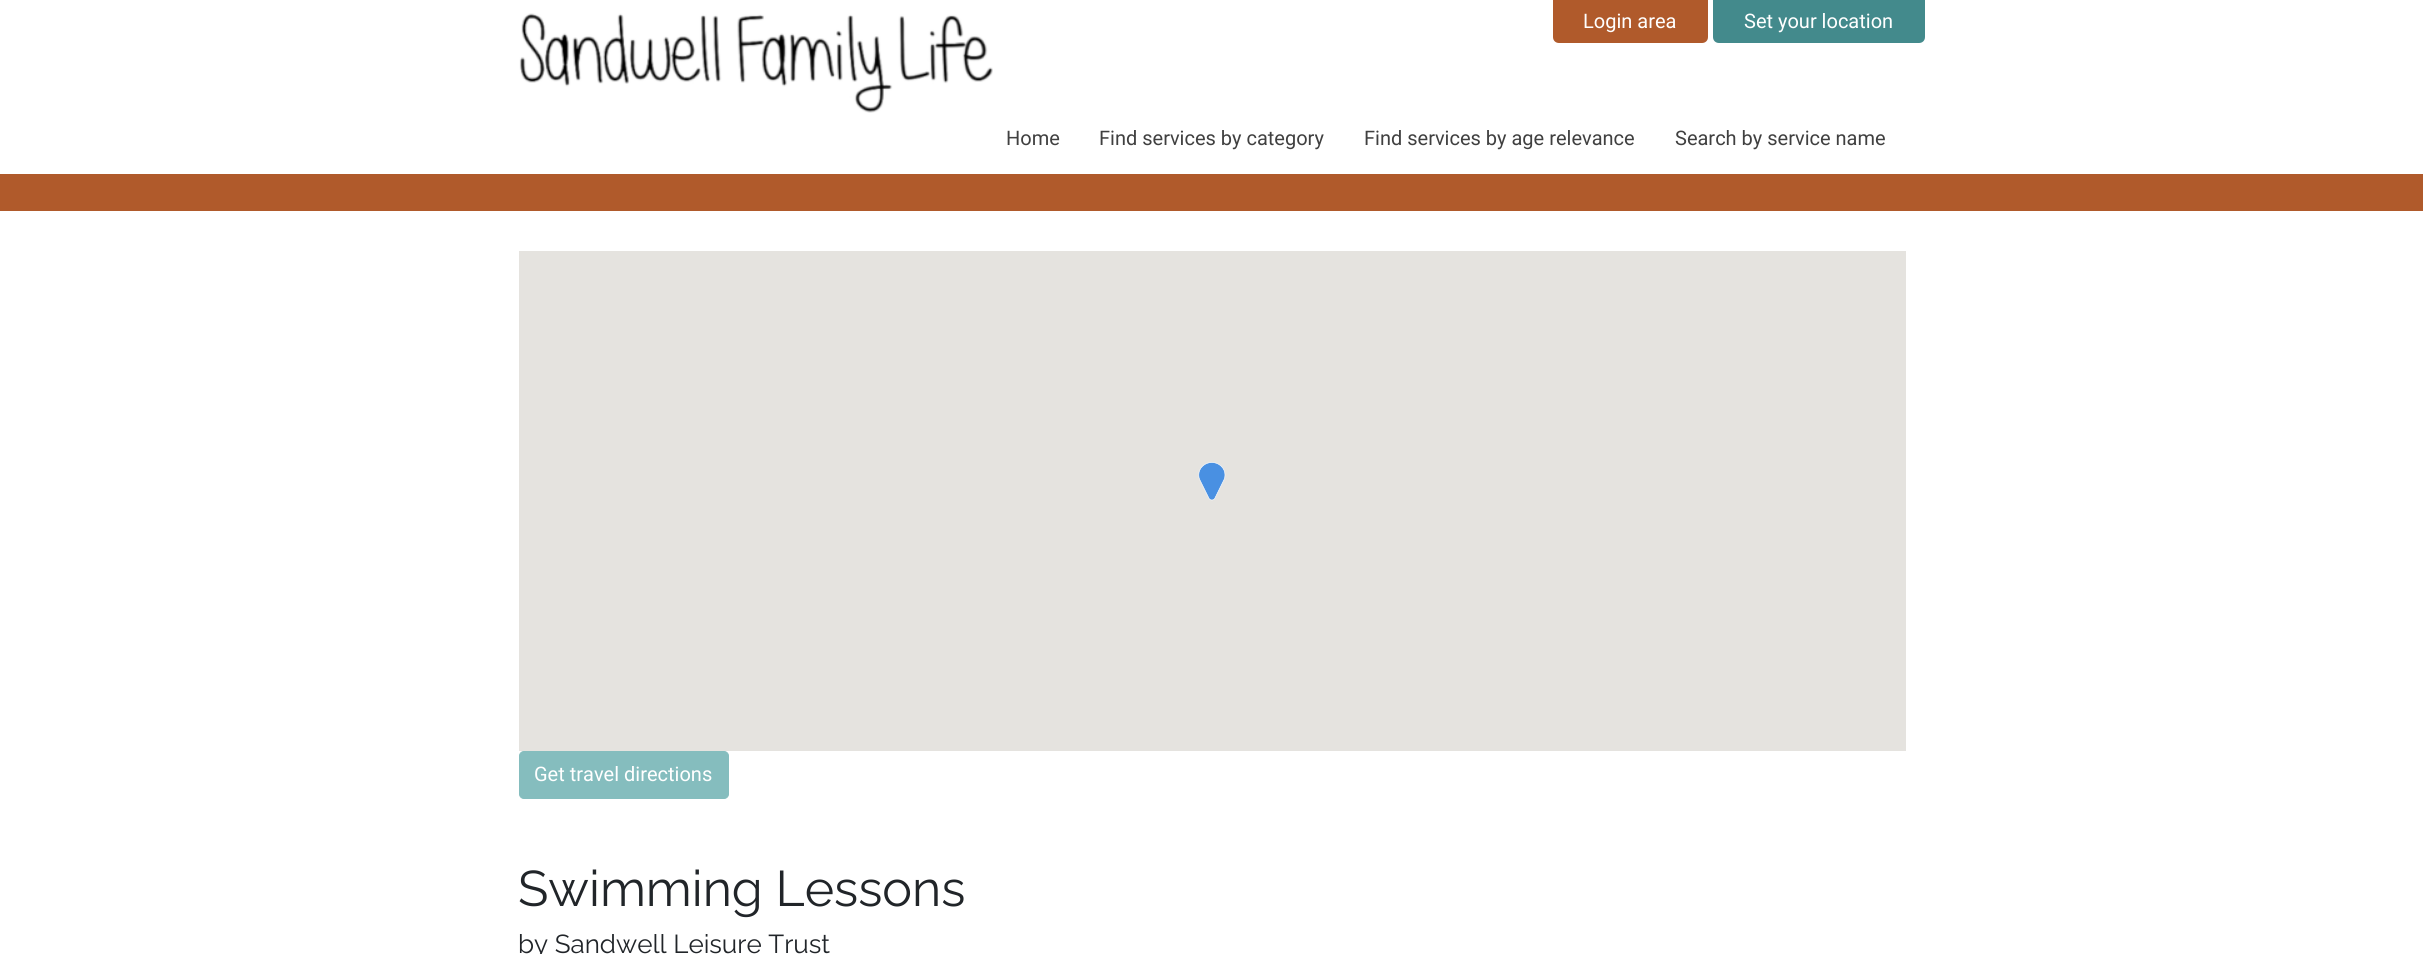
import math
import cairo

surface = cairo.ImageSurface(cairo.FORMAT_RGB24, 2423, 954)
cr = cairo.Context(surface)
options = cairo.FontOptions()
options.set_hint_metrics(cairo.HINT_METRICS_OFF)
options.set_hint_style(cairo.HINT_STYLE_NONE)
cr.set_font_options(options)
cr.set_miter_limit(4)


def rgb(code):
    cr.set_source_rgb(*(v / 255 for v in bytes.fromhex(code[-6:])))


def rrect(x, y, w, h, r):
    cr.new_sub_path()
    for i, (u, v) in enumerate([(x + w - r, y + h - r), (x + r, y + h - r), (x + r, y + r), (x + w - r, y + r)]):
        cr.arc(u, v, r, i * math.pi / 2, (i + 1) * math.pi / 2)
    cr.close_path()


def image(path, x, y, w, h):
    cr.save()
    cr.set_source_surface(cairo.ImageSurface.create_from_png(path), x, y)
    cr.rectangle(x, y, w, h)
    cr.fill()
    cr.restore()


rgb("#ffffff")
cr.paint()
rgb("#b05a2b")
cr.rectangle(0, 174, 2423, 37)
cr.fill()
image("img/1.png", 519, 13, 474, 100)
cr.new_path()
cr.move_to(1553, -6)
cr.line_to(1708, -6)
cr.line_to(1708, 37)
cr.curve_to(1708, 40.5, 1705.5, 43, 1702, 43)
cr.line_to(1559, 43)
cr.curve_to(1555.5, 43, 1553, 40.5, 1553, 37)
cr.close_path()
cr.fill()
rgb("#438a8c")
cr.new_path()
cr.move_to(1713, -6)
cr.line_to(1925, -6)
cr.line_to(1925, 37)
cr.curve_to(1925, 40.5, 1922.5, 43, 1919, 43)
cr.line_to(1719, 43)
cr.curve_to(1715.5, 43, 1713, 40.5, 1713, 37)
cr.close_path()
cr.fill()
rgb("#e5e3df")
cr.rectangle(519, 251, 1387, 500)
cr.fill()
image("img/2.png", 1198, 462, 28, 39)
rgb("#85bdbe")
rrect(519.5, 751.5, 209, 47, 4.5)
cr.fill_preserve()
cr.set_line_width(1)
cr.stroke()
cr.select_font_face("Roboto")
cr.set_font_size(20)
rgb("#ffffff")
cr.move_to(1583, 28)
cr.show_text("Login area")
cr.move_to(1744, 28)
cr.show_text("Set your location")
rgb("#404040")
for x, y, s in [
    (1006, 145, "Home"),
    (1099, 145, "Find services by category"),
    (1364, 145, "Find services by age relevance"),
    (1675, 145, "Search by service name"),
]:
    cr.move_to(x, y)
    cr.show_text(s)
rgb("#ffffff")
cr.move_to(534, 781)
cr.show_text("Get travel directions")
cr.select_font_face("Raleway")
cr.set_font_size(50)
rgb("#212529")
cr.move_to(518, 906)
cr.show_text("Swimming Lessons")
cr.set_font_size(26)
cr.move_to(518, 953)
cr.show_text("by Sandwell Leisure Trust")
surface.write_to_png("page.png")
